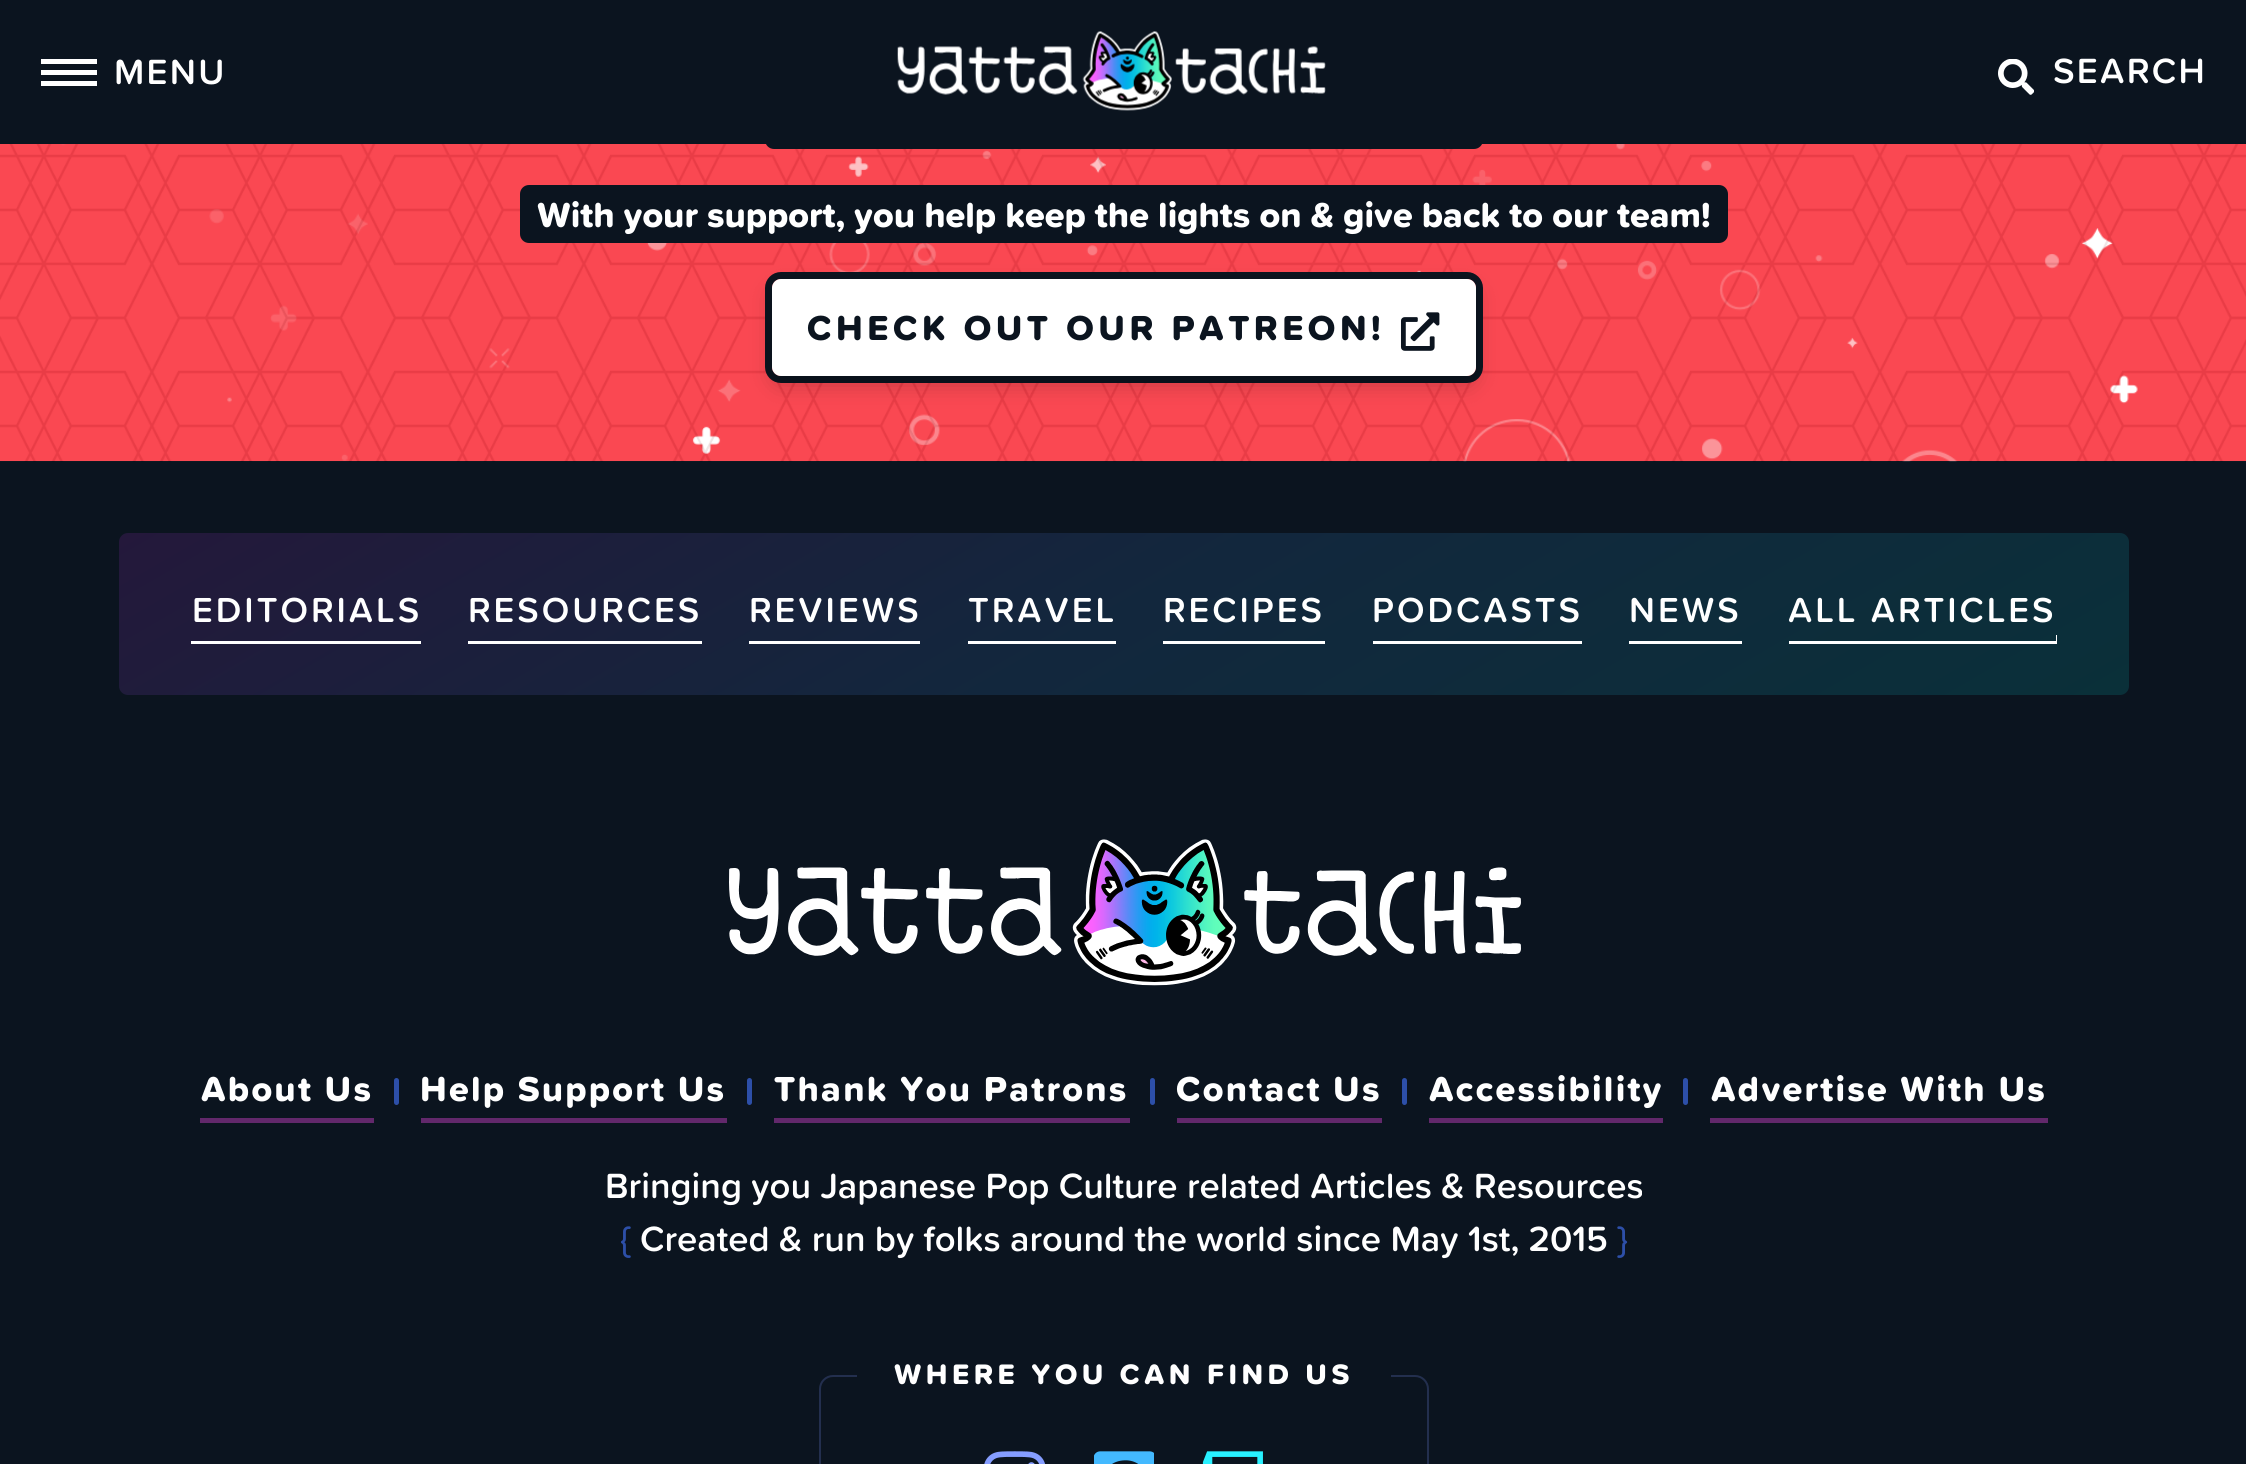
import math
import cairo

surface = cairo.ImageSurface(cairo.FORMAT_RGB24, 2246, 1464)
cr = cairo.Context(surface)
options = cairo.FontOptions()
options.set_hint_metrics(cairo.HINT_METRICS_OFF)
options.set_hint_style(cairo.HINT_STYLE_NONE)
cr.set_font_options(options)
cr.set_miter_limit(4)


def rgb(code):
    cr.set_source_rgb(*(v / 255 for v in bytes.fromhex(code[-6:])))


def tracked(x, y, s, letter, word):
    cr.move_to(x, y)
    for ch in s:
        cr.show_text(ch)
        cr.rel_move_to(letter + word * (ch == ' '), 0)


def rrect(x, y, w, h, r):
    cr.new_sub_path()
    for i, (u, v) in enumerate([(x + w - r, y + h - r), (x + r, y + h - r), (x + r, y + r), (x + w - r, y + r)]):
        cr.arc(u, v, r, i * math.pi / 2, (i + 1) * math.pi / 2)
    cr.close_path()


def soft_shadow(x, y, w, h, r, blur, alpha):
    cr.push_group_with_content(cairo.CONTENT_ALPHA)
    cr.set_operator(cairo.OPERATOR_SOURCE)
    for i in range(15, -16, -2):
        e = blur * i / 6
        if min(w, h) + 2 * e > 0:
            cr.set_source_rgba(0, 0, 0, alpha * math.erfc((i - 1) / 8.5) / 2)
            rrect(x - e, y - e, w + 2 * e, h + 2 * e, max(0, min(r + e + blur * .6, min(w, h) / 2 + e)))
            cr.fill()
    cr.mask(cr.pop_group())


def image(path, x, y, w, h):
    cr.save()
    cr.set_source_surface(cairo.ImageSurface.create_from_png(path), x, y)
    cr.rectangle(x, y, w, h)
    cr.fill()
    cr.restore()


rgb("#0b141f")
cr.paint()
for x, y, w, h, color in [
    (41, 59, 56, 5, "#ffffff"),
    (41, 70, 56, 5, "#ffffff"),
    (41, 81, 56, 5, "#ffffff"),
    (0, 144, 2246, 317, "#ff424d"),
]:
    rgb(color)
    cr.rectangle(x, y, w, h)
    cr.fill()
image("img/3.png", 0, 144, 2246, 318)
rgb("#0b141f")
rrect(765, 43, 718, 106, 9)
cr.fill()
image("img/1.png", 897, 31, 429, 80)
image("img/2.png", 1998, 59, 36, 36)
rrect(520, 185, 1208, 58, 9)
cr.fill()
rrect(768.5, 275.5, 711, 104, 12.5)
cr.set_line_width(7)
cr.stroke()
rgb("#000000")
soft_shadow(772, 288, 704, 97, 9, 11, 0.2)
rgb("#ffffff")
rrect(772, 279, 704, 97, 9)
cr.fill()
image("img/4.png", 1400, 312, 40, 39)
gradient = cairo.LinearGradient(838, 118, 1410, 1110)
gradient.add_color_stop_rgba(0, 0.141, 0.094, 0.231, 1)
gradient.add_color_stop_rgba(0.5, 0.071, 0.153, 0.239, 1)
gradient.add_color_stop_rgba(1, 0.039, 0.188, 0.224, 1)
cr.set_source(gradient)
rrect(119, 533, 2010, 162, 9)
cr.fill()
rgb("#ffffff")
cr.new_path()
cr.move_to(191, 635)
cr.line_to(191, 644)
cr.line_to(421, 644)
cr.line_to(421, 635)
cr.line_to(421, 641)
cr.line_to(191, 641)
cr.close_path()
cr.fill()
cr.rectangle(468, 641, 234, 3)
cr.fill()
cr.new_path()
cr.move_to(749, 635)
cr.line_to(749, 644)
cr.line_to(920, 644)
cr.line_to(920, 641)
cr.line_to(749, 641)
cr.close_path()
cr.fill()
cr.rectangle(968, 641, 148, 3)
cr.fill()
cr.new_path()
cr.move_to(1163, 635)
cr.line_to(1163, 644)
cr.line_to(1325, 644)
cr.line_to(1325, 641)
cr.line_to(1163, 641)
cr.close_path()
cr.fill()
cr.new_path()
cr.move_to(1373, 641)
cr.line_to(1373, 644)
cr.line_to(1582, 644)
cr.line_to(1582, 635)
cr.line_to(1582, 641)
cr.close_path()
cr.fill()
cr.new_path()
cr.move_to(1629, 641)
cr.line_to(1629, 644)
cr.line_to(1742, 644)
cr.line_to(1742, 635)
cr.line_to(1742, 641)
cr.close_path()
cr.fill()
cr.new_path()
cr.move_to(1789, 641)
cr.line_to(1789, 644)
cr.line_to(2057, 644)
cr.line_to(2057, 635)
cr.line_to(2056, 635)
cr.line_to(2056, 641)
cr.close_path()
cr.fill()
image("img/5.png", 729, 839, 792, 147)
rgb("#62286b")
cr.rectangle(200, 1118, 174, 5)
cr.fill()
rgb("#2d4fa8")
rrect(394, 1078, 5, 27, 2.5)
cr.fill()
rgb("#62286b")
cr.rectangle(421, 1118, 306, 5)
cr.fill()
rgb("#2d4fa8")
rrect(747, 1078, 5, 27, 2.5)
cr.fill()
rgb("#62286b")
cr.rectangle(774, 1118, 356, 5)
cr.fill()
rgb("#2d4fa8")
rrect(1150, 1078, 5, 27, 2.5)
cr.fill()
rgb("#62286b")
cr.rectangle(1177, 1118, 205, 5)
cr.fill()
rgb("#2d4fa8")
rrect(1402, 1078, 5, 27, 2.5)
cr.fill()
rgb("#62286b")
cr.rectangle(1429, 1118, 234, 5)
cr.fill()
rgb("#2d4fa8")
rrect(1683, 1078, 5, 27, 2.5)
cr.fill()
rgb("#62286b")
cr.rectangle(1710, 1118, 338, 5)
cr.fill()
rrect(820, 1376, 608, 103, 13)
rgb("#232f4e")
cr.set_line_width(2)
cr.stroke()
rgb("#0b141f")
cr.rectangle(857, 1375, 534, 2)
cr.fill()
image("img/6.png", 984, 1451, 61, 13)
image("img/7.png", 1094, 1451, 60, 13)
image("img/8.png", 1202, 1451, 61, 13)
cr.select_font_face("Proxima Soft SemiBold")
cr.set_font_size(36.35)
rgb("#ffffff")
tracked(114, 84, "MENU", 2.25, 0)
tracked(2053, 83, "SEARCH", 2.25, 0)
cr.select_font_face("Proxima Soft ExtraBold")
cr.set_font_size(36)
cr.move_to(537, 227)
cr.show_text("With your support, you help keep the lights on & give back to our team!")
rgb("#0b141f")
tracked(807, 340, "CHECK OUT OUR PATREON!", 4.5, 0)
cr.select_font_face("Proxima Soft SemiBold")
rgb("#ffffff")
for x, y, s in [
    (192, 622, "EDITORIALS"),
    (468, 622, "RESOURCES"),
    (749, 622, "REVIEWS"),
    (968, 622, "TRAVEL"),
    (1163, 622, "RECIPES"),
    (1372, 622, "PODCASTS"),
    (1629, 622, "NEWS"),
    (1788, 622, "ALL ARTICLES"),
]:
    tracked(x, y, s, 3, 0)
cr.select_font_face("Proxima Soft ExtraBold")
for x, y, s in [
    (201, 1101, "About Us"),
    (420, 1101, "Help Support Us"),
    (774, 1101, "Thank You Patrons"),
    (1176, 1101, "Contact Us"),
    (1429, 1101, "Accessibility"),
    (1711, 1101, "Advertise With Us"),
]:
    tracked(x, y, s, 2.25, 0)
cr.select_font_face("Proxima Soft SemiBold")
cr.set_font_size(36.35)
cr.move_to(605, 1198)
cr.show_text("Bringing you Japanese Pop Culture related Articles & Resources")
rgb("#2d4fa8")
cr.move_to(621, 1251)
cr.show_text("{")
rgb("#ffffff")
cr.move_to(640, 1251)
cr.show_text("Created & run by folks around the world since May 1st, 2015")
rgb("#2d4fa8")
cr.move_to(1617, 1251)
cr.show_text("}")
cr.select_font_face("Proxima Soft ExtraBold")
cr.set_font_size(29.25)
rgb("#ffffff")
tracked(894, 1384, "WHERE YOU CAN FIND US", 4.5, 0)
surface.write_to_png("page.png")
